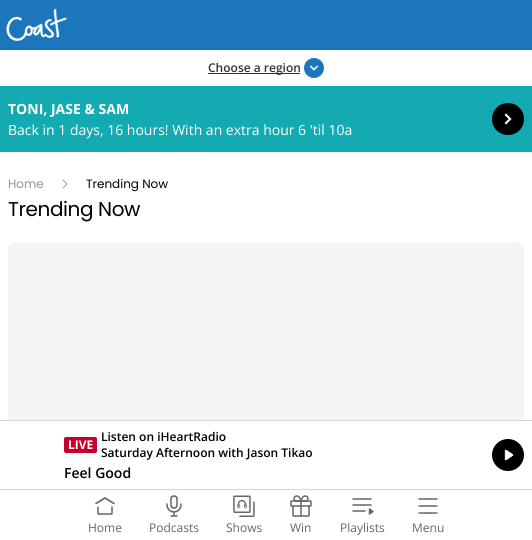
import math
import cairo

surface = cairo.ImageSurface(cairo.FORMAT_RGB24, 532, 540)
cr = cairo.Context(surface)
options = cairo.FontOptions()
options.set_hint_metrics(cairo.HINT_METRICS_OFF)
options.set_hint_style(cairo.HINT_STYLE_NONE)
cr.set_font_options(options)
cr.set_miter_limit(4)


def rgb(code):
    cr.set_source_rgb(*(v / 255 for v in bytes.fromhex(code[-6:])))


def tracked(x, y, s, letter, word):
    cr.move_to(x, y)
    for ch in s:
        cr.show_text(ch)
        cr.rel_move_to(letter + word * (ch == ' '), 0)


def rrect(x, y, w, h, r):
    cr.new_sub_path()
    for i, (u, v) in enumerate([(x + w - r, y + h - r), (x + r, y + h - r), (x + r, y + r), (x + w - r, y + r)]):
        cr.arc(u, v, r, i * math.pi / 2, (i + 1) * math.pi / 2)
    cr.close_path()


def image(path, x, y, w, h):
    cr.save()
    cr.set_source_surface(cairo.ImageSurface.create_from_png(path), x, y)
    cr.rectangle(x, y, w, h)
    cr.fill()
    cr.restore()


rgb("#ffffff")
cr.paint()
rgb("#1b76bb")
cr.rectangle(0, 0, 532, 50)
cr.fill()
image("img/1.png", 6, 8, 61, 33)
rgb("#333333")
cr.rectangle(208, 73, 92, 1)
cr.fill()
rgb("#1b76bb")
cr.arc(314, 68, 10, 0, 2 * math.pi)
cr.fill()
image("img/2.png", 309, 65, 10, 6)
rgb("#13aab1")
cr.rectangle(0, 86, 532, 66)
cr.fill()
rgb("#000000")
cr.new_path()
cr.move_to(492, 119)
cr.curve_to(492, 110, 499, 103, 508, 103)
cr.curve_to(517, 103, 524, 110, 524, 119)
cr.curve_to(524, 128, 517, 135, 508, 135)
cr.curve_to(499, 135, 492, 128, 492, 119)
cr.close_path()
cr.fill()
image("img/3.png", 504, 113, 8, 12)
image("img/4.png", 62, 179, 6, 10)
rgb("#f5f5f5")
rrect(8, 242, 516, 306, 8)
cr.fill()
rgb("#ffffff")
cr.rectangle(8, 421, 516, 119)
cr.fill()
rgb("#d1d5db")
cr.rectangle(0, 420, 532, 1)
cr.fill()
rgb("#c7002b")
rrect(64, 437, 33, 16, 2)
cr.fill()
rgb("#000000")
cr.arc(508, 455, 16, 0, 2 * math.pi)
cr.fill()
image("img/5.png", 504, 449, 10, 12)
rgb("#d1d5db")
cr.rectangle(0, 489, 532, 1)
cr.fill()
image("img/6.png", 95, 497, 20, 18)
image("img/7.png", 166, 495, 16, 22)
image("img/8.png", 233, 495, 22, 22)
image("img/9.png", 290, 495, 22, 22)
image("img/10.png", 352, 498, 22, 17)
image("img/11.png", 418, 498, 20, 16)
cr.select_font_face("Open Sans SemiBold")
cr.set_font_size(12)
rgb("#333333")
cr.move_to(208, 72)
cr.show_text("Choose a region")
cr.select_font_face("Open Sans", cairo.FONT_SLANT_NORMAL, cairo.FONT_WEIGHT_BOLD)
cr.set_font_size(14)
rgb("#ffffff")
cr.move_to(8, 114)
cr.show_text("TONI, JASE & SAM")
cr.select_font_face("Open Sans")
cr.move_to(8, 135)
cr.show_text("Back in 1 days, 16 hours! With an extra hour 6 'til 10a")
cr.select_font_face("Poppins")
cr.set_font_size(12)
rgb("#949494")
cr.move_to(8, 188)
cr.show_text("Home")
rgb("#000000")
cr.move_to(86, 188)
cr.show_text("Trending Now")
cr.set_font_size(20)
tracked(8, 216, "Trending Now", -0.4, 0)
cr.select_font_face("Open Sans", cairo.FONT_SLANT_NORMAL, cairo.FONT_WEIGHT_BOLD)
cr.set_font_size(12)
rgb("#ffffff")
cr.move_to(68, 449)
cr.show_text("LIVE")
cr.select_font_face("Open Sans SemiBold")
rgb("#000000")
cr.move_to(101, 441)
cr.show_text("Listen on iHeartRadio")
cr.move_to(101, 457)
cr.show_text("Saturday Afternoon with Jason Tikao")
cr.set_font_size(14)
cr.move_to(64, 478)
cr.show_text("Feel Good")
cr.select_font_face("Open Sans")
cr.set_font_size(12)
rgb("#666666")
for x, y, s in [
    (88, 532, "Home"),
    (149, 532, "Podcasts"),
    (226, 532, "Shows"),
    (290, 532, "Win"),
    (340, 532, "Playlists"),
    (412, 532, "Menu"),
]:
    cr.move_to(x, y)
    cr.show_text(s)
surface.write_to_png("page.png")
